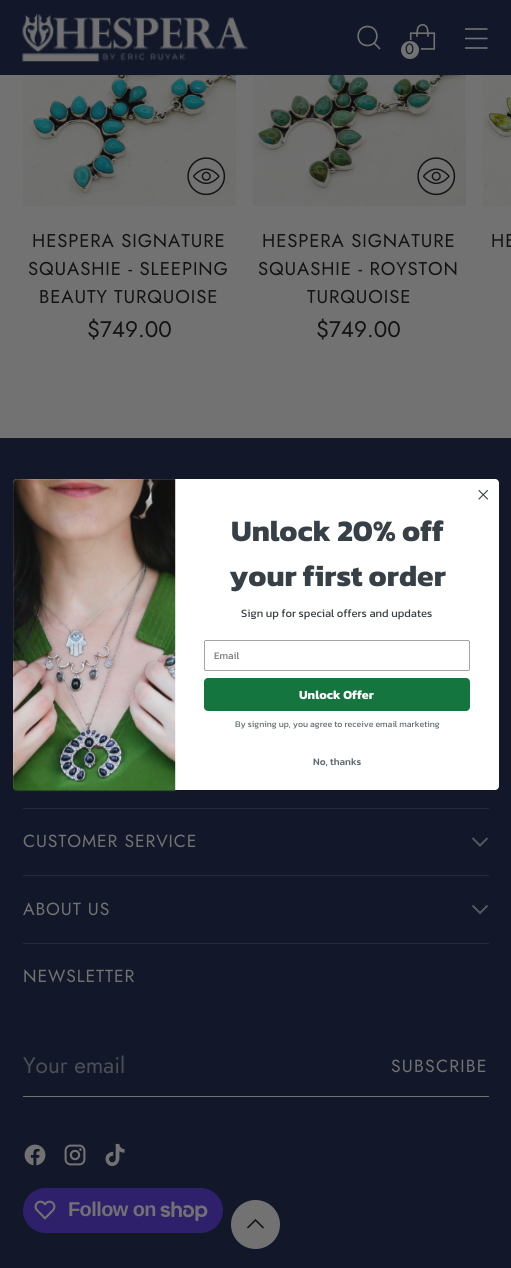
import math
import cairo

surface = cairo.ImageSurface(cairo.FORMAT_RGB24, 511, 1268)
cr = cairo.Context(surface)
options = cairo.FontOptions()
options.set_hint_metrics(cairo.HINT_METRICS_OFF)
options.set_hint_style(cairo.HINT_STYLE_NONE)
cr.set_font_options(options)
cr.set_miter_limit(4)


def rgb(code):
    cr.set_source_rgb(*(v / 255 for v in bytes.fromhex(code[-6:])))


def tracked(x, y, s, letter, word):
    cr.move_to(x, y)
    for ch in s:
        cr.show_text(ch)
        cr.rel_move_to(letter + word * (ch == ' '), 0)


def rrect(x, y, w, h, r):
    cr.new_sub_path()
    for i, (u, v) in enumerate([(x + w - r, y + h - r), (x + r, y + h - r), (x + r, y + r), (x + w - r, y + r)]):
        cr.arc(u, v, r, i * math.pi / 2, (i + 1) * math.pi / 2)
    cr.close_path()


def image(path, x, y, w, h):
    cr.save()
    cr.set_source_surface(cairo.ImageSurface.create_from_png(path), x, y)
    cr.rectangle(x, y, w, h)
    cr.fill()
    cr.restore()


rgb("#727272")
cr.paint()
rgb("#121829")
cr.rectangle(0, 0, 511, 75)
cr.fill()
image("img/1.png", 22, 13, 226, 49)
cr.new_path()
cr.move_to(367.5, 45.5)
cr.curve_to(380, 45.5, 380, 26.5, 367.5, 26.5)
cr.curve_to(355, 26.5, 355, 45.5, 367.5, 45.5)
cr.close_path()
rgb("#727272")
cr.set_line_width(1.6)
cr.set_line_cap(cairo.LINE_CAP_ROUND)
cr.stroke()
cr.new_path()
cr.move_to(374, 43)
cr.line_to(380, 49)
cr.set_line_cap(cairo.LINE_CAP_BUTT)
cr.stroke()
image("img/2.png", 409, 24, 27, 26)
cr.arc(410.5, 50.5, 9.5, 0, 2 * math.pi)
rgb("#121829")
cr.set_line_width(2)
cr.stroke()
rgb("#727272")
cr.arc(410, 50, 9, 0, 2 * math.pi)
cr.fill()
cr.new_path()
cr.move_to(465, 38.5)
cr.line_to(487.5, 38.5)
cr.move_to(465, 29)
cr.line_to(487.5, 29)
cr.move_to(465, 48)
cr.line_to(487.5, 48)
cr.set_line_width(1.6)
cr.stroke()
image("img/3.png", 23, 75, 213, 131)
image("img/4.png", 187, 157, 39, 39)
image("img/5.png", 253, 75, 213, 131)
image("img/6.png", 417, 157, 39, 39)
image("img/7.png", 483, 75, 28, 131)
for x, y, w, h, color in [
    (0, 438, 511, 830, "#121829"),
    (23, 808, 466, 1, "#252a38"),
    (23, 875, 466, 1, "#252a38"),
]:
    rgb(color)
    cr.rectangle(x, y, w, h)
    cr.fill()
cr.new_path()
cr.move_to(472.5, 838)
cr.line_to(480, 845.5)
cr.line_to(487.5, 838)
rgb("#55575c")
cr.set_line_width(2)
cr.stroke()
rgb("#252a38")
cr.rectangle(23, 943, 466, 1)
cr.fill()
cr.new_path()
cr.move_to(472.5, 905.5)
cr.line_to(480, 913)
cr.line_to(487.5, 905.5)
rgb("#55575c")
cr.stroke()
rgb("#727272")
cr.rectangle(23, 1096, 466, 1)
cr.fill()
image("img/8.png", 24, 1144, 22, 22)
image("img/9.png", 64, 1144, 22, 22)
image("img/10.png", 105, 1143, 20, 24)
rgb("#2e206a")
rrect(23, 1188, 200, 45, 22.5)
cr.fill()
image("img/11.png", 34, 1200, 22, 20)
image("img/12.png", 160, 1201, 48, 20)
rgb("#727272")
cr.arc(255.5, 1224.5, 24.5, 0, 2 * math.pi)
cr.fill()
cr.new_path()
cr.move_to(263.5, 1228)
cr.line_to(255.5, 1220)
cr.line_to(247.5, 1228)
rgb("#131313")
cr.set_line_width(1.6)
cr.stroke()
rgb("#ffffff")
rrect(13, 479, 486, 311, 4)
cr.fill()
cr.new_path()
cr.move_to(479, 490.5)
cr.line_to(487.5, 499)
cr.move_to(479, 499)
cr.line_to(487.5, 490.5)
cr.close_path()
rgb("#373f47")
cr.set_line_width(1.1)
cr.set_line_cap(cairo.LINE_CAP_ROUND)
cr.set_line_join(cairo.LINE_JOIN_ROUND)
cr.stroke()
image("img/13.png", 13, 479, 163, 313)
rrect(204.3, 640.3, 265.4, 30.4, 2.2)
rgb("#606a72")
cr.set_line_width(0.6)
cr.set_line_cap(cairo.LINE_CAP_BUTT)
cr.set_line_join(cairo.LINE_JOIN_MITER)
cr.stroke()
rgb("#15753f")
rrect(204, 678, 266, 33, 4)
cr.fill()
cr.select_font_face("Jost")
cr.set_font_size(15)
rgb("#121829")
cr.move_to(405, 54)
cr.show_text("0")
cr.set_font_size(18.5)
rgb("#131313")
for x, y, s in [
    (32, 247, "HESPERA SIGNATURE"),
    (28, 275, "SQUASHIE - SLEEPING"),
    (39, 303, "BEAUTY TURQUOISE"),
]:
    tracked(x, y, s, 0.9, 0)
cr.set_font_size(22.5)
cr.move_to(87, 337)
cr.show_text("$749.00")
cr.set_font_size(18.5)
for x, y, s in [
    (262, 247, "HESPERA SIGNATURE"),
    (258, 275, "SQUASHIE - ROYSTON"),
    (307, 303, "TURQUOISE"),
]:
    tracked(x, y, s, 0.9, 0)
cr.set_font_size(22.5)
cr.move_to(316, 337)
cr.show_text("$749.00")
cr.set_font_size(18.5)
tracked(491, 247, "HE", 0.9, 0)
cr.set_font_size(17.5)
rgb("#727272")
for x, y, s in [
    (23, 847, "CUSTOMER SERVICE"),
    (23, 915, "ABOUT US"),
    (23, 982, "NEWSLETTER"),
]:
    tracked(x, y, s, 0.9, 0)
cr.set_font_size(22.5)
rgb("#4c4e55")
cr.move_to(23, 1073)
cr.show_text("Your email")
cr.set_font_size(17.5)
rgb("#727272")
tracked(391, 1072, "SUBSCRIBE", 1.25, 0)
cr.select_font_face("Liberation Sans", cairo.FONT_SLANT_NORMAL, cairo.FONT_WEIGHT_BOLD)
cr.set_font_size(20)
tracked(68, 1216, "Follow on", -0.6, 0)
cr.select_font_face("Kanit", cairo.FONT_SLANT_NORMAL, cairo.FONT_WEIGHT_BOLD)
cr.set_font_size(30)
rgb("#373f47")
cr.move_to(231, 541)
cr.show_text("Unlock 20% off")
cr.move_to(229, 586)
cr.show_text("your first order")
cr.select_font_face("Kanit")
cr.set_font_size(11.25)
cr.move_to(241, 617)
cr.show_text("Sign up for special offers and updates")
cr.set_font_size(10)
rgb("#727272")
cr.move_to(214, 659)
cr.show_text("Email")
cr.select_font_face("Kanit", cairo.FONT_SLANT_NORMAL, cairo.FONT_WEIGHT_BOLD)
cr.set_font_size(12.5)
rgb("#ffffff")
cr.move_to(299, 699)
cr.show_text("Unlock Offer")
cr.select_font_face("Kanit")
cr.set_font_size(8.75)
rgb("#606a72")
cr.move_to(235, 727)
cr.show_text("By signing up, you agree to receive email marketing")
cr.select_font_face("Kanit Medium")
cr.set_font_size(10)
cr.move_to(313, 765)
cr.show_text("No, thanks")
surface.write_to_png("page.png")
